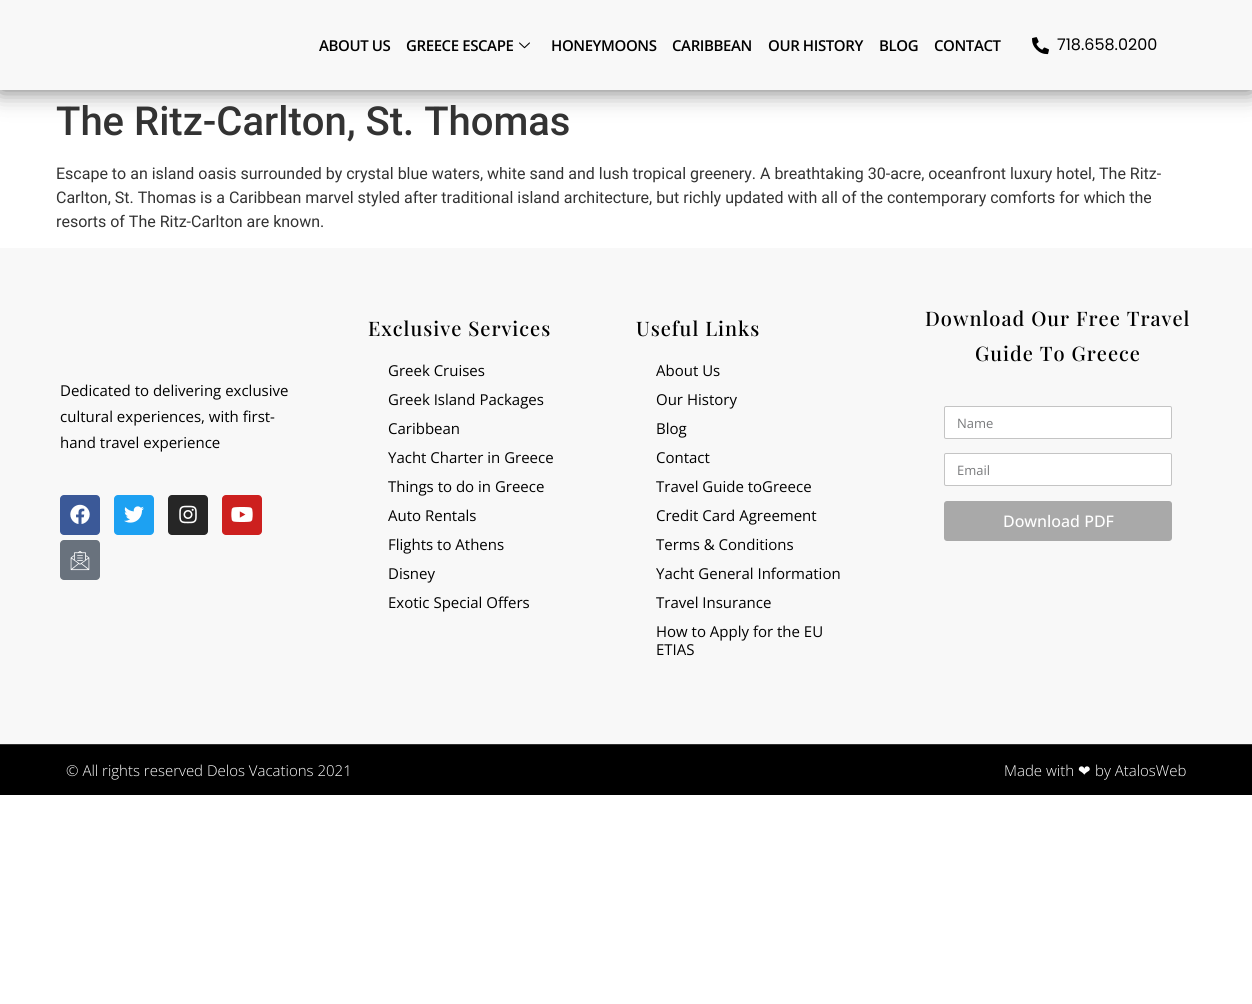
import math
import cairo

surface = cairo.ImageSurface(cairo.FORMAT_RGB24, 1252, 1004)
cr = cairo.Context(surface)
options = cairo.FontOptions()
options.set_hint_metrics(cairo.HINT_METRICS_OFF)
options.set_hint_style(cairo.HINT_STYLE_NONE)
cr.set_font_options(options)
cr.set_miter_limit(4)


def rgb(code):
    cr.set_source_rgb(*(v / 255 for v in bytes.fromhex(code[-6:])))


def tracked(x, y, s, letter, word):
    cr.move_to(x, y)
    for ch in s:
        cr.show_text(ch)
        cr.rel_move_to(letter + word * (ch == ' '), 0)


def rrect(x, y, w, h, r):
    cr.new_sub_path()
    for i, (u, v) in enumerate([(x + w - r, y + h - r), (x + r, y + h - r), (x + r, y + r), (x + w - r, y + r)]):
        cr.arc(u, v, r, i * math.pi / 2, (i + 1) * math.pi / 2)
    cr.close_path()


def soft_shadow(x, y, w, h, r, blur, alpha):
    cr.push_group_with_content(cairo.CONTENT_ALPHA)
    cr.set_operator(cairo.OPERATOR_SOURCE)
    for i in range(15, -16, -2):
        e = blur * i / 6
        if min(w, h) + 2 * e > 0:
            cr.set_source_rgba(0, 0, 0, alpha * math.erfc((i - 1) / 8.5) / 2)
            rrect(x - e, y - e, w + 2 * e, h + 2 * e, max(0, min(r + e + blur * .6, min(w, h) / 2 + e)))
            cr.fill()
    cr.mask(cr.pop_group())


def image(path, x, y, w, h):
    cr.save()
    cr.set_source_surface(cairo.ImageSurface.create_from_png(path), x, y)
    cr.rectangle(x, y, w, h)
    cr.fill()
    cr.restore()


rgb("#ffffff")
cr.paint()
rgb("#000000")
soft_shadow(0, 5, 1252, 90, 0, 15, 0.1)
soft_shadow(0, 0, 1252, 90, 0, 11, 0.5)
rgb("#f8f8f8")
cr.rectangle(0, 0, 1252, 90)
cr.fill()
image("img/1.png", 519, 42, 11, 7)
image("img/2.png", 1032, 37, 17, 18)
cr.rectangle(0, 248, 1252, 496)
cr.fill()
rgb("#3b5998")
rrect(60, 495, 40, 40, 4)
cr.fill()
image("img/3.png", 70, 504, 20, 20)
rgb("#1da1f2")
rrect(114, 495, 40, 40, 4)
cr.fill()
image("img/4.png", 124, 506, 20, 17)
rgb("#262626")
rrect(168, 495, 40, 40, 4)
cr.fill()
image("img/5.png", 179, 505, 18, 19)
rgb("#cd201f")
rrect(222, 495, 40, 40, 4)
cr.fill()
image("img/6.png", 231, 507, 22, 15)
rgb("#69727d")
rrect(60, 540, 40, 40, 4)
cr.fill()
image("img/7.png", 70, 551, 20, 20)
rgb("#ffffff")
rrect(944.5, 406.5, 227, 32, 1.5)
cr.fill_preserve()
rgb("#c4c4c4")
cr.set_line_width(1)
cr.stroke()
rgb("#ffffff")
rrect(944.5, 453.5, 227, 32, 1.5)
cr.fill_preserve()
rgb("#c4c4c4")
cr.stroke()
rgb("#a9a9a9")
rrect(944, 501, 228, 40, 3)
cr.fill()
rgb("#000000")
cr.rectangle(0, 745, 1252, 50)
cr.fill()
rgb("#303030")
cr.rectangle(0, 744, 1252, 1)
cr.fill()
cr.select_font_face("Open Sans SemiBold")
cr.set_font_size(15)
rgb("#000000")
for x, y, s in [
    (319, 51, "ABOUT US"),
    (406, 51, "GREECE ESCAPE"),
    (551, 51, "HONEYMOONS"),
    (672, 51, "CARIBBEAN"),
    (768, 51, "OUR HISTORY"),
    (879, 51, "BLOG"),
    (934, 51, "CONTACT"),
]:
    tracked(x, y, s, -0.4, 0)
cr.select_font_face("Poppins")
cr.set_font_size(16)
cr.move_to(1057, 50)
cr.show_text("718.658.0200")
cr.select_font_face("Roboto Medium")
cr.set_font_size(40)
rgb("#333333")
cr.move_to(56, 135)
cr.show_text("The Ritz-Carlton, St. Thomas")
cr.select_font_face("Roboto")
cr.set_font_size(16)
for x, y, s in [
    (56, 179, "Escape to an island oasis surrounded by crystal blue waters, white sand and lush tropical greenery. A breathtaking 30-acre, oceanfront luxury hotel, The Ritz-"),
    (56, 203, "Carlton, St. Thomas is a Caribbean marvel styled after traditional island architecture, but richly updated with all of the contemporary comforts for which the"),
    (56, 227, "resorts of The Ritz-Carlton are known."),
]:
    cr.move_to(x, y)
    cr.show_text(s)
cr.select_font_face("Open Sans")
cr.set_font_size(15)
rgb("#000000")
for x, y, s in [
    (60, 396, "Dedicated to delivering exclusive"),
    (60, 422, "cultural experiences, with first-"),
    (60, 448, "hand travel experience"),
]:
    cr.move_to(x, y)
    cr.show_text(s)
cr.select_font_face("Playfair Display Medium")
cr.set_font_size(20)
tracked(368, 336, "Exclusive Services", 1, 0)
cr.select_font_face("Open Sans")
cr.set_font_size(15)
for x, y, s in [
    (388, 376, "Greek Cruises"),
    (388, 405, "Greek Island Packages"),
    (388, 434, "Caribbean"),
    (388, 463, "Yacht Charter in Greece"),
    (388, 492, "Things to do in Greece"),
    (388, 521, "Auto Rentals"),
    (388, 550, "Flights to Athens"),
    (388, 579, "Disney"),
    (388, 608, "Exotic Special Offers"),
]:
    cr.move_to(x, y)
    cr.show_text(s)
cr.select_font_face("Playfair Display Medium")
cr.set_font_size(20)
tracked(636, 336, "Useful Links", 1, 0)
cr.select_font_face("Open Sans")
cr.set_font_size(15)
for x, y, s in [
    (656, 376, "About Us"),
    (656, 405, "Our History"),
    (656, 434, "Blog"),
    (656, 463, "Contact"),
    (656, 492, "Travel Guide toGreece"),
    (656, 521, "Credit Card Agreement"),
    (656, 550, "Terms & Conditions"),
    (656, 579, "Yacht General Information"),
    (656, 608, "Travel Insurance"),
    (656, 637, "How to Apply for the EU"),
    (656, 655, "ETIAS"),
]:
    cr.move_to(x, y)
    cr.show_text(s)
cr.select_font_face("Playfair Display Medium")
cr.set_font_size(20)
tracked(925, 326, "Download Our Free Travel", 1, 0)
tracked(975, 361, "Guide To Greece", 1, 0)
cr.select_font_face("Open Sans")
cr.set_font_size(13)
rgb("#797a7c")
cr.move_to(957, 428)
cr.show_text("Name")
cr.move_to(957, 475)
cr.show_text("Email")
cr.select_font_face("Open Sans Medium")
cr.set_font_size(16)
rgb("#ffffff")
cr.move_to(1003, 527)
cr.show_text("Download PDF")
cr.select_font_face("Open Sans Light")
cr.set_font_size(15)
cr.move_to(66, 776)
cr.show_text("© All rights reserved Delos Vacations 2021")
cr.move_to(1004, 776)
cr.show_text("Made with")
cr.select_font_face("DejaVu Sans")
cr.move_to(1078, 776)
cr.show_text("❤")
cr.select_font_face("Open Sans Light")
cr.move_to(1095, 776)
cr.show_text("by AtalosWeb")
surface.write_to_png("page.png")
